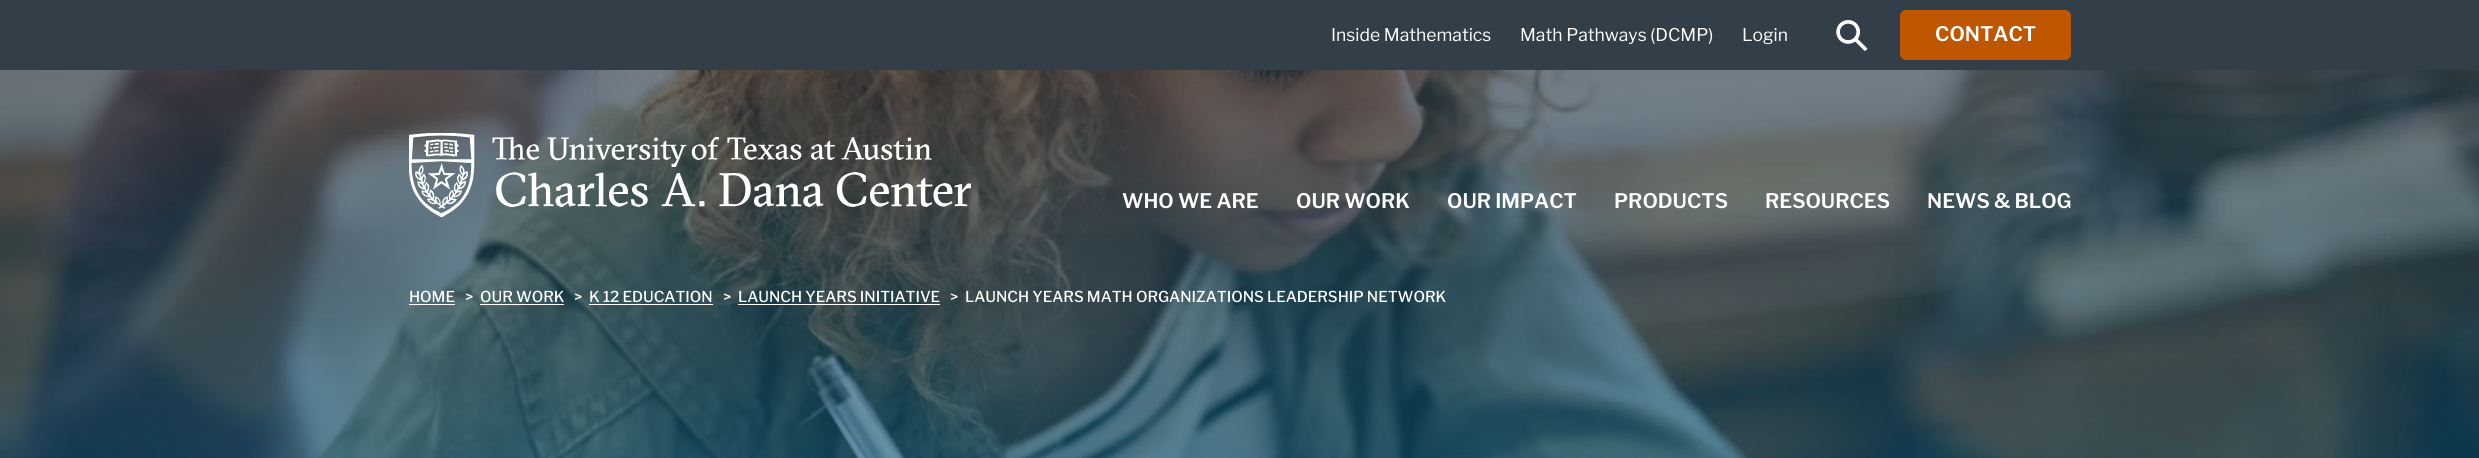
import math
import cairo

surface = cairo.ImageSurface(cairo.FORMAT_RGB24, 2479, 458)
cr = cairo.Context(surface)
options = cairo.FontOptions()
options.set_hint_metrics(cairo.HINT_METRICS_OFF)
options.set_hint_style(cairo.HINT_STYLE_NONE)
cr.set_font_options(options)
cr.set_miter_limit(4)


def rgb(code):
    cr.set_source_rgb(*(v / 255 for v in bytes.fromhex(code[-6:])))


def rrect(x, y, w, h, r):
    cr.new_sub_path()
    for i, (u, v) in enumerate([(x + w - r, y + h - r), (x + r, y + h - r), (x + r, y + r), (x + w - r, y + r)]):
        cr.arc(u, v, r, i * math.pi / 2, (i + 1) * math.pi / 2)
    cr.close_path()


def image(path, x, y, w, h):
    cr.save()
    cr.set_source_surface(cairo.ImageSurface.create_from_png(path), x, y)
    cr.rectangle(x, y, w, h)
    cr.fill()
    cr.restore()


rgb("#333f48")
cr.paint()
image("img/1.png", 1836, 20, 32, 31)
rgb("#bf5700")
rrect(1900, 10, 171, 50, 6)
cr.fill()
image("img/2.png", 0, 70, 2479, 388)
image("img/3.png", 409, 133, 562, 85)
for x, y, w, h, color in [
    (409, 304, 46, 1, "#ffffff"),
    (480, 304, 84, 1, "#ffffff"),
    (589, 304, 124, 1, "#ffffff"),
    (738, 304, 202, 1, "#ffffff"),
]:
    rgb(color)
    cr.rectangle(x, y, w, h)
    cr.fill()
cr.select_font_face("Libre Franklin")
cr.set_font_size(17.5)
for x, y, s in [
    (1331, 41, "Inside Mathematics"),
    (1520, 41, "Math Pathways (DCMP)"),
    (1742, 41, "Login"),
]:
    cr.move_to(x, y)
    cr.show_text(s)
cr.select_font_face("Libre Franklin SemiBold")
cr.set_font_size(20)
for x, y, s in [
    (1935, 41, "CONTACT"),
    (1122, 208, "WHO WE ARE"),
    (1296, 208, "OUR WORK"),
    (1447, 208, "OUR IMPACT"),
    (1614, 208, "PRODUCTS"),
    (1765, 208, "RESOURCES"),
    (1927, 208, "NEWS & BLOG"),
]:
    cr.move_to(x, y)
    cr.show_text(s)
cr.select_font_face("Libre Franklin Medium")
cr.set_font_size(15)
for x, y, s in [
    (409, 302, "HOME"),
    (465, 302, ">"),
    (480, 302, "OUR WORK"),
    (574, 302, ">"),
    (589, 302, "K 12 EDUCATION"),
    (723, 302, ">"),
    (738, 302, "LAUNCH YEARS INITIATIVE"),
    (950, 302, ">"),
    (965, 302, "LAUNCH YEARS MATH ORGANIZATIONS LEADERSHIP NETWORK"),
]:
    cr.move_to(x, y)
    cr.show_text(s)
surface.write_to_png("page.png")
